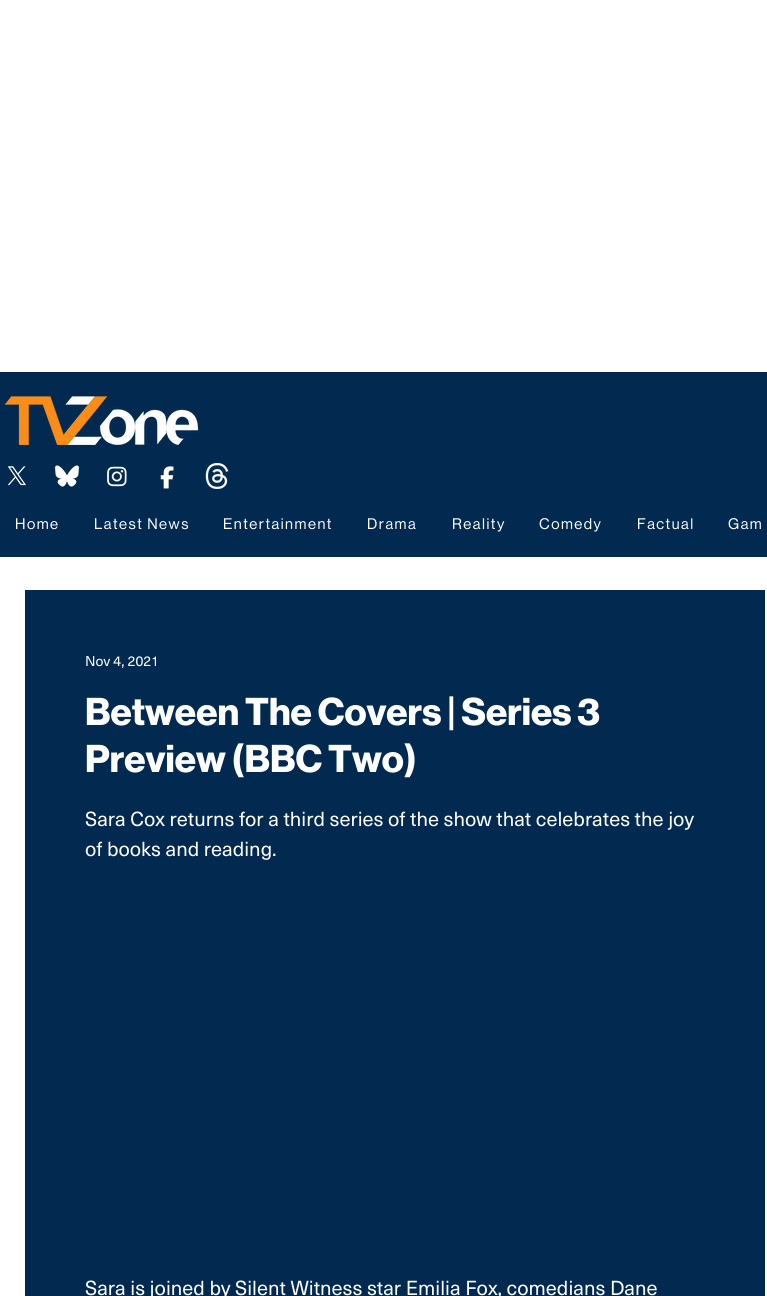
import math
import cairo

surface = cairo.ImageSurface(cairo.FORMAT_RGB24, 767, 1296)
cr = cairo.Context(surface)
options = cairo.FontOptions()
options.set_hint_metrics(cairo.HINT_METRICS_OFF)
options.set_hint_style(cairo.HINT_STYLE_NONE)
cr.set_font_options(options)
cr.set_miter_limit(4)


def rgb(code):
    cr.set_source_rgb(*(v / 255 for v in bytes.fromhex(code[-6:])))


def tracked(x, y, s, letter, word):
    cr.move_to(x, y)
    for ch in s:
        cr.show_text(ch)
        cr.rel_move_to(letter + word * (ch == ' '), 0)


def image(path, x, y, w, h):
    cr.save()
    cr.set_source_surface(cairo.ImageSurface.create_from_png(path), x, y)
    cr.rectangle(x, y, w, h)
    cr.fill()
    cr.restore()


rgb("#ffffff")
cr.paint()
rgb("#022a51")
cr.rectangle(0, 372, 767, 185)
cr.fill()
image("img/1.png", 4, 396, 195, 49)
image("img/2.png", 7, 466, 19, 20)
image("img/3.png", 54, 465, 26, 22)
image("img/4.png", 107, 466, 20, 21)
image("img/5.png", 160, 466, 14, 23)
image("img/6.png", 205, 463, 24, 26)
cr.rectangle(25, 590, 740, 706)
cr.fill()
cr.select_font_face("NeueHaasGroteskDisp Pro")
cr.set_font_size(15)
rgb("#ffffff")
for x, y, s in [
    (15, 529, "Home"),
    (94, 529, "Latest News"),
    (223, 529, "Entertainment"),
    (367, 529, "Drama"),
    (452, 529, "Reality"),
    (539, 529, "Comedy"),
    (637, 529, "Factual"),
    (728, 529, "Gam"),
]:
    tracked(x, y, s, 1.5, 0)
cr.select_font_face("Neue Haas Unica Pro")
cr.set_font_size(14)
cr.move_to(85, 666)
cr.show_text("Nov 4, 2021")
cr.select_font_face("NeueHaasGroteskDisp Pro", cairo.FONT_SLANT_NORMAL, cairo.FONT_WEIGHT_BOLD)
cr.set_font_size(38)
cr.move_to(85, 725)
cr.show_text("Between The Covers | Series 3")
cr.move_to(85, 772)
cr.show_text("Preview (BBC Two)")
cr.select_font_face("Neue Haas Unica Pro")
cr.set_font_size(20)
for x, y, s in [
    (85, 826, "Sara Cox returns for a third series of the show that celebrates the joy"),
    (85, 856, "of books and reading."),
    (85, 1295, "Sara is joined by Silent Witness star Emilia Fox, comedians Dane"),
]:
    cr.move_to(x, y)
    cr.show_text(s)
surface.write_to_png("page.png")
